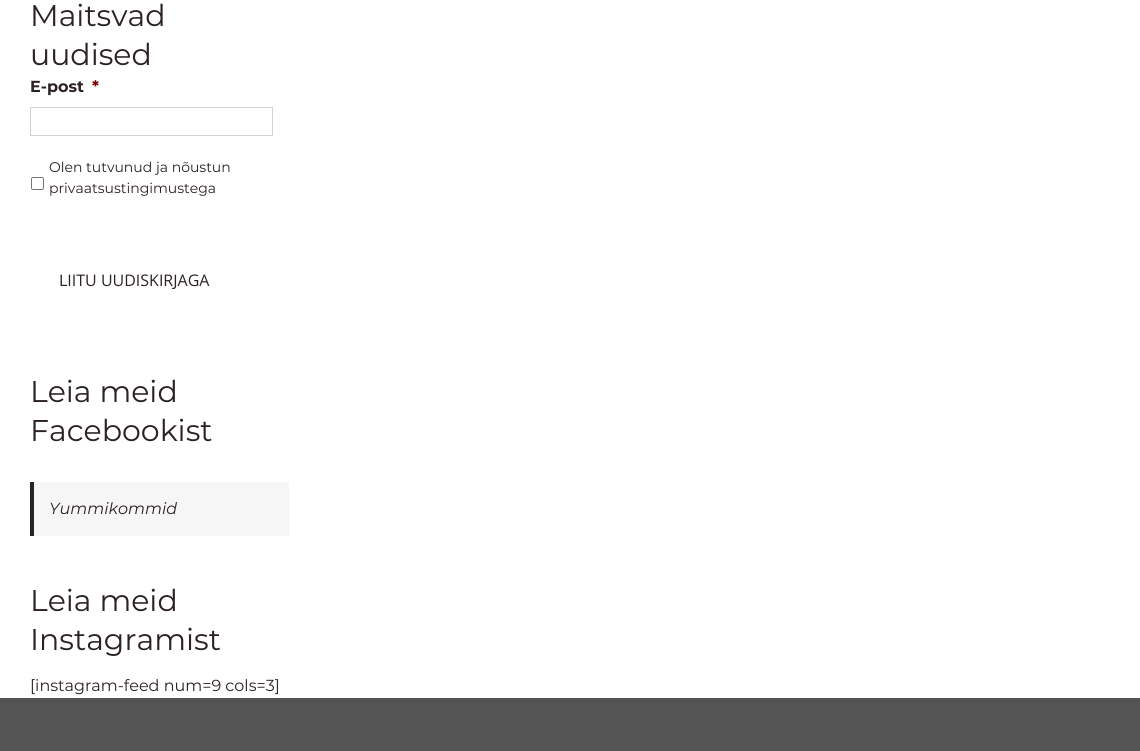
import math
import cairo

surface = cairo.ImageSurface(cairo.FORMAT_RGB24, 1140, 751)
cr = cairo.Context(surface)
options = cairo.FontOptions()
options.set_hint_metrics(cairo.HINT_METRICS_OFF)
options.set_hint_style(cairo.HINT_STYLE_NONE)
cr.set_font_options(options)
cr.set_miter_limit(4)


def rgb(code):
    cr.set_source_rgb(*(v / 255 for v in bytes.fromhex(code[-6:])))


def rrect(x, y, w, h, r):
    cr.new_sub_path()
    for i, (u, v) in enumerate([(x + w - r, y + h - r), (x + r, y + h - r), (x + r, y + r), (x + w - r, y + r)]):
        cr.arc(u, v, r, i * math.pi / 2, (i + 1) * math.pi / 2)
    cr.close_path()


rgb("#ffffff")
cr.paint()
cr.rectangle(30.5, 107.5, 242, 28)
rgb("#d2d2d2")
cr.set_line_width(1)
cr.stroke()
rrect(31.5, 177.5, 12, 12, 1.5)
rgb("#767676")
cr.stroke()
for x, y, w, h, color in [
    (34, 482, 255, 54, "#f6f6f6"),
    (30, 482, 4, 54, "#2b2222"),
    (0, 698, 1140, 53, "#545454"),
]:
    rgb(color)
    cr.rectangle(x, y, w, h)
    cr.fill()
cr.select_font_face("Montserrat")
cr.set_font_size(30)
rgb("#2b2222")
cr.move_to(30, 26)
cr.show_text("Maitsvad")
cr.move_to(30, 65)
cr.show_text("uudised")
cr.select_font_face("Montserrat", cairo.FONT_SLANT_NORMAL, cairo.FONT_WEIGHT_BOLD)
cr.set_font_size(16)
cr.move_to(30, 92)
cr.show_text("E-post")
rgb("#790000")
cr.move_to(92, 92)
cr.show_text("*")
cr.select_font_face("Montserrat")
cr.set_font_size(14)
rgb("#2b2222")
cr.move_to(49, 172)
cr.show_text("Olen tutvunud ja nõustun")
cr.move_to(49, 193)
cr.show_text("privaatsustingimustega")
cr.select_font_face("Open Sans")
cr.set_font_size(16)
cr.move_to(59, 286)
cr.show_text("LIITU UUDISKIRJAGA")
cr.select_font_face("Montserrat")
cr.set_font_size(30)
cr.move_to(30, 402)
cr.show_text("Leia meid")
cr.move_to(30, 441)
cr.show_text("Facebookist")
cr.select_font_face("Montserrat", cairo.FONT_SLANT_ITALIC)
cr.set_font_size(16)
cr.move_to(49, 514)
cr.show_text("Yummikommid")
cr.select_font_face("Montserrat")
cr.set_font_size(30)
cr.move_to(30, 611)
cr.show_text("Leia meid")
cr.move_to(30, 650)
cr.show_text("Instagramist")
cr.set_font_size(16)
cr.move_to(30, 691)
cr.show_text("[instagram-feed num=9 cols=3]")
surface.write_to_png("page.png")
